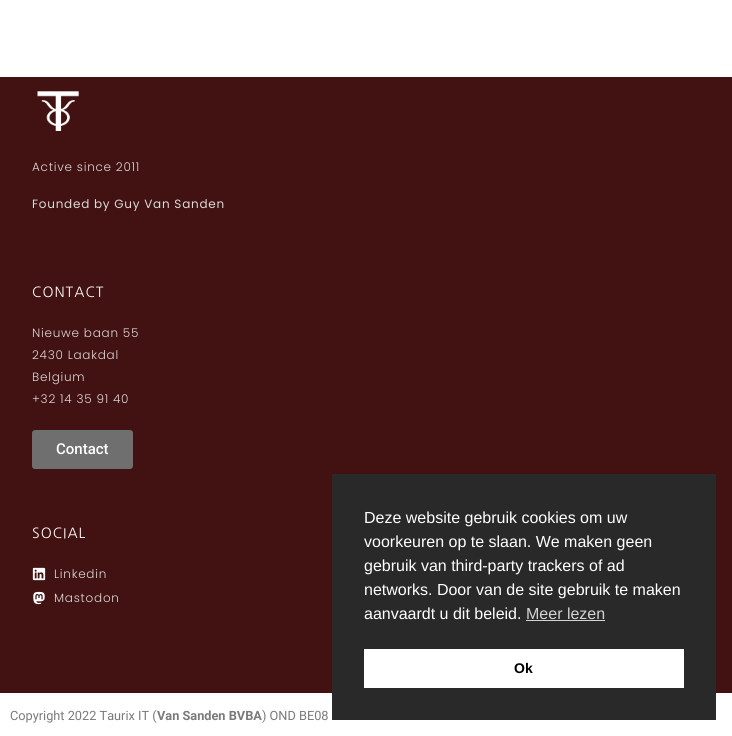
import math
import cairo

surface = cairo.ImageSurface(cairo.FORMAT_RGB24, 732, 736)
cr = cairo.Context(surface)
options = cairo.FontOptions()
options.set_hint_metrics(cairo.HINT_METRICS_OFF)
options.set_hint_style(cairo.HINT_STYLE_NONE)
cr.set_font_options(options)
cr.set_miter_limit(4)


def rgb(code):
    cr.set_source_rgb(*(v / 255 for v in bytes.fromhex(code[-6:])))


def tracked(x, y, s, letter, word):
    cr.move_to(x, y)
    for ch in s:
        cr.show_text(ch)
        cr.rel_move_to(letter + word * (ch == ' '), 0)


def rrect(x, y, w, h, r):
    cr.new_sub_path()
    for i, (u, v) in enumerate([(x + w - r, y + h - r), (x + r, y + h - r), (x + r, y + r), (x + w - r, y + r)]):
        cr.arc(u, v, r, i * math.pi / 2, (i + 1) * math.pi / 2)
    cr.close_path()


def image(path, x, y, w, h):
    cr.save()
    cr.set_source_surface(cairo.ImageSurface.create_from_png(path), x, y)
    cr.rectangle(x, y, w, h)
    cr.fill()
    cr.restore()


rgb("#ffffff")
cr.paint()
rgb("#421111")
cr.rectangle(0, 77, 732, 616)
cr.fill()
image("img/1.png", 37, 91, 42, 40)
rgb("#6f6f6f")
rrect(32, 430, 101, 39, 3)
cr.fill()
image("img/2.png", 32, 567, 14, 14)
image("img/3.png", 33, 591, 12, 14)
for x, y, w, h, color in [
    (332, 474, 384, 246, "#292929"),
    (526, 620, 79, 1, "#d4d4d4"),
    (364, 649, 320, 39, "#ffffff"),
]:
    rgb(color)
    cr.rectangle(x, y, w, h)
    cr.fill()
cr.select_font_face("Poppins Light")
cr.set_font_size(12)
rgb("#dadada")
tracked(32, 171, "Active since 2011", 0.75, 0)
cr.select_font_face("Poppins")
tracked(32, 208, "Founded by Guy Van Sanden", 0.75, 0)
cr.select_font_face("NanumGothic")
cr.set_font_size(14)
rgb("#ffffff")
tracked(32, 297, "CONTACT", 1, 0)
cr.select_font_face("Poppins Light")
cr.set_font_size(12)
rgb("#dadada")
for x, y, s in [
    (32, 337, "Nieuwe baan 55"),
    (32, 359, "2430 Laakdal"),
    (32, 381, "Belgium"),
    (32, 403, "+32 14 35 91 40"),
]:
    tracked(x, y, s, 0.75, 0)
cr.select_font_face("Roboto Medium")
cr.set_font_size(15)
rgb("#ffffff")
cr.move_to(56, 454)
cr.show_text("Contact")
cr.select_font_face("NanumGothic")
cr.set_font_size(14)
tracked(32, 538, "SOCIAL", 1, 0)
cr.select_font_face("Poppins Light")
cr.set_font_size(12)
rgb("#dadada")
tracked(54, 578, "Linkedin", 0.75, 0)
tracked(54, 602, "Mastodon", 0.75, 0)
cr.select_font_face("Roboto")
cr.set_font_size(12.75)
rgb("#7a7a7a")
cr.move_to(10, 720)
cr.show_text("Copyright 2022 Taurix IT (")
cr.select_font_face("Roboto", cairo.FONT_SLANT_NORMAL, cairo.FONT_WEIGHT_BOLD)
cr.move_to(157, 720)
cr.show_text("Van Sanden BVBA")
cr.select_font_face("Roboto")
cr.move_to(262, 720)
cr.show_text(") OND BE08")
cr.select_font_face("Liberation Sans")
cr.set_font_size(16)
rgb("#ffffff")
for x, y, s in [
    (364, 523, "Deze website gebruik cookies om uw"),
    (364, 547, "voorkeuren op te slaan. We maken geen"),
    (364, 571, "gebruik van third-party trackers of ad"),
    (364, 595, "networks. Door van de site gebruik te maken"),
    (364, 619, "aanvaardt u dit beleid."),
]:
    cr.move_to(x, y)
    cr.show_text(s)
rgb("#d4d4d4")
cr.move_to(526, 619)
cr.show_text("Meer lezen")
cr.select_font_face("Liberation Sans", cairo.FONT_SLANT_NORMAL, cairo.FONT_WEIGHT_BOLD)
cr.set_font_size(14)
rgb("#000000")
cr.move_to(514, 673)
cr.show_text("Ok")
surface.write_to_png("page.png")
